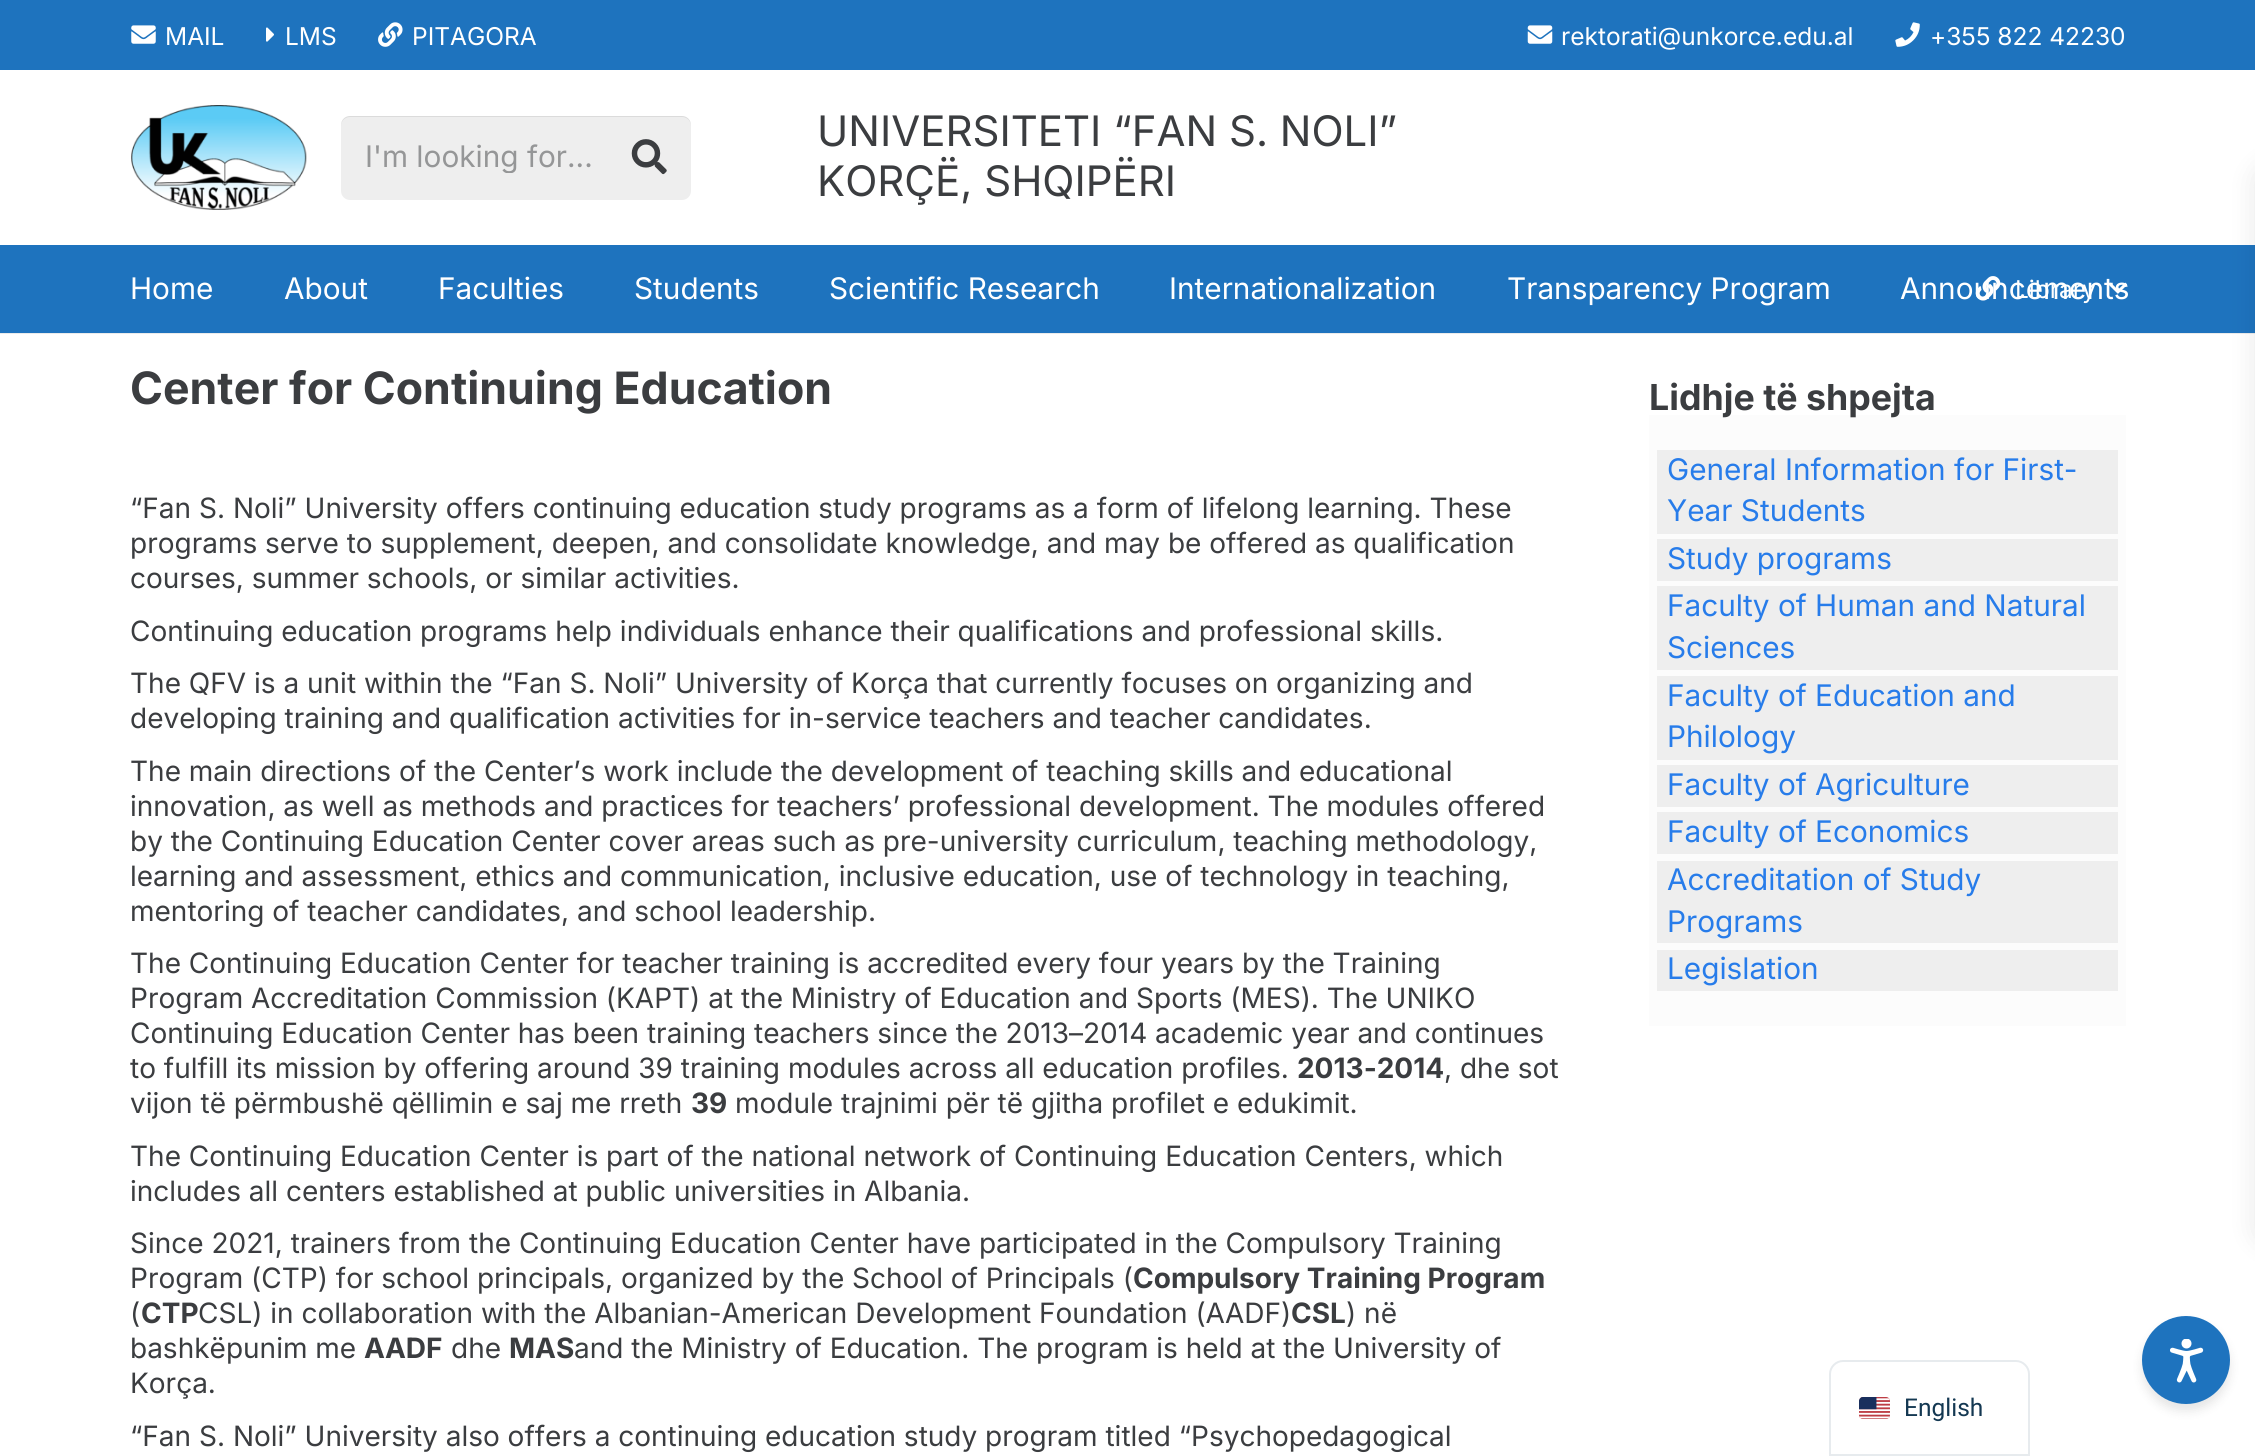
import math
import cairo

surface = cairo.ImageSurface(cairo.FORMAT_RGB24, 2255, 1456)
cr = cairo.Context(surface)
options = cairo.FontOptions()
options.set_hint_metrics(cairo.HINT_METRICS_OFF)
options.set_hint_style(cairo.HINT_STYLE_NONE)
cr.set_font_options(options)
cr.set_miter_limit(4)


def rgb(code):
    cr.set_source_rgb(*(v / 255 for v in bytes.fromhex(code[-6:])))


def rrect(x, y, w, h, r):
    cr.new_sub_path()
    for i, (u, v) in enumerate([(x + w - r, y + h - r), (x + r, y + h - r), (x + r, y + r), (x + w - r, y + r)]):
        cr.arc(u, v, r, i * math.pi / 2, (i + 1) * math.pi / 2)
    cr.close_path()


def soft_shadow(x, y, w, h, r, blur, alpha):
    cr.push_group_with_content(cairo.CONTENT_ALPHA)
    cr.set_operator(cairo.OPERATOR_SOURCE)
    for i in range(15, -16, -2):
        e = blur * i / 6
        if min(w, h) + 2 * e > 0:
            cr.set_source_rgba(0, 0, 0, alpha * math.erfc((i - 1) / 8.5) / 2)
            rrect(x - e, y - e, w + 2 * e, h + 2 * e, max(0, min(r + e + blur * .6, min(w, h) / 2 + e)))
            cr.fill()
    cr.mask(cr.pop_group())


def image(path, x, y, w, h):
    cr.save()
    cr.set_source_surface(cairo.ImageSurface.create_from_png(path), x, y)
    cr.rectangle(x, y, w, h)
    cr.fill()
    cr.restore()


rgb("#ffffff")
cr.paint()
rgb("#1e73be")
cr.rectangle(0, 0, 2255, 70)
cr.fill()
image("img/1.png", 131, 25, 25, 19)
image("img/2.png", 266, 27, 8, 15)
image("img/3.png", 378, 22, 25, 25)
image("img/4.png", 1527, 25, 26, 19)
image("img/5.png", 1895, 22, 25, 25)
image("img/6.png", 131, 105, 176, 105)
rgb("#eeeeee")
rrect(341, 116, 350, 84, 9)
cr.fill()
cr.set_source_rgba(0, 0, 0, 0.08)
cr.new_path()
cr.move_to(350, 117)
cr.line_to(682, 117)
cr.curve_to(687, 117, 691, 121, 691, 126)
cr.line_to(691, 125)
cr.curve_to(691, 120, 687, 116, 682, 116)
cr.line_to(350, 116)
cr.curve_to(345, 116, 341, 120, 341, 125)
cr.line_to(341, 126)
cr.curve_to(341, 121, 345, 117, 350, 117)
cr.close_path()
cr.fill()
image("img/7.png", 631, 139, 36, 36)
rgb("#ebebeb")
cr.new_path()
cr.move_to(0, 332)
cr.line_to(0, 334)
cr.line_to(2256, 334)
cr.line_to(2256, 247)
cr.line_to(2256, 332)
cr.close_path()
cr.fill()
for x, y, w, h, color in [
    (0, 245, 2255, 88, "#1e73be"),
    (1649, 415, 477, 611, "#fcfcfc"),
    (1657, 450, 461, 84, "#eeeeee"),
    (1657, 539, 461, 42, "#eeeeee"),
    (1657, 586, 461, 84, "#eeeeee"),
    (1657, 676, 461, 84, "#eeeeee"),
    (1657, 765, 461, 42, "#eeeeee"),
    (1657, 812, 461, 42, "#eeeeee"),
    (1657, 861, 461, 82, "#eeeeee"),
    (1657, 950, 461, 41, "#eeeeee"),
]:
    rgb(color)
    cr.rectangle(x, y, w, h)
    cr.fill()
rgb("#000000")
soft_shadow(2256, 166, 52, 1078, 14, 13, 0.1)
cr.new_path()
cr.move_to(1843, 1361)
cr.line_to(2016, 1361)
cr.curve_to(2023, 1361, 2029, 1367, 2029, 1374)
cr.line_to(2029, 1455)
cr.line_to(1830, 1455)
cr.line_to(1830, 1374)
cr.curve_to(1830, 1367, 1836, 1361, 1843, 1361)
cr.close_path()
rgb("#e7ebee")
cr.stroke()
image("img/10.png", 1859, 1397, 31, 22)
rgb("#000000")
soft_shadow(2142, 1323, 88, 88, 44, 5, 0.1)
rgb("#1e73be")
cr.arc(2186, 1360, 44, 0, 2 * math.pi)
cr.fill()
image("img/11.png", 2170, 1339, 34, 44)
cr.select_font_face("Inter")
cr.set_font_size(24.5)
rgb("#ffffff")
for x, y, s in [
    (165, 45, "MAIL"),
    (285, 45, "LMS"),
    (412, 45, "PITAGORA"),
    (1561, 45, "rektorati@unkorce.edu.al"),
    (1930, 45, "+355 822 42230"),
]:
    cr.move_to(x, y)
    cr.show_text(s)
cr.save()
cr.rectangle(364, 138, 243, 35)
cr.clip()
cr.set_font_size(29.75)
rgb("#959697")
cr.move_to(365, 167)
cr.show_text("I'm looking for...")
cr.restore()
cr.set_font_size(42)
rgb("#3b3d40")
cr.move_to(817, 146)
cr.show_text("UNIVERSITETI “FAN S. NOLI”")
cr.move_to(817, 196)
cr.show_text("KORÇË, SHQIPËRI")
cr.set_font_size(29.75)
rgb("#ffffff")
for x, y, s in [
    (130, 299, "Home"),
    (284, 299, "About"),
    (438, 299, "Faculties"),
    (634, 299, "Students"),
    (829, 299, "Scientific Research"),
    (1169, 299, "Internationalization"),
    (1507, 299, "Transparency Program"),
    (1900, 299, "Announcements"),
]:
    cr.move_to(x, y)
    cr.show_text(s)
image("img/8.png", 1975, 276, 26, 25)
cr.set_font_size(24.5)
cr.move_to(2015, 298)
cr.show_text("Library")
image("img/9.png", 2109, 282, 19, 12)
cr.select_font_face("Inter", cairo.FONT_SLANT_NORMAL, cairo.FONT_WEIGHT_BOLD)
cr.set_font_size(44.6)
rgb("#3b3d40")
cr.move_to(130, 404)
cr.show_text("Center for Continuing Education")
cr.select_font_face("Inter")
cr.set_font_size(28)
for x, y, s in [
    (130, 518, "“Fan S. Noli” University offers continuing education study programs as a form of lifelong learning. These"),
    (130, 553, "programs serve to supplement, deepen, and consolidate knowledge, and may be offered as qualification"),
    (130, 588, "courses, summer schools, or similar activities."),
    (130, 641, "Continuing education programs help individuals enhance their qualifications and professional skills."),
    (130, 693, "The QFV is a unit within the “Fan S. Noli” University of Korça that currently focuses on organizing and"),
    (130, 728, "developing training and qualification activities for in-service teachers and teacher candidates."),
    (130, 781, "The main directions of the Center’s work include the development of teaching skills and educational"),
    (130, 816, "innovation, as well as methods and practices for teachers’ professional development. The modules offered"),
    (130, 851, "by the Continuing Education Center cover areas such as pre-university curriculum, teaching methodology,"),
    (130, 886, "learning and assessment, ethics and communication, inclusive education, use of technology in teaching,"),
    (130, 921, "mentoring of teacher candidates, and school leadership."),
    (130, 973, "The Continuing Education Center for teacher training is accredited every four years by the Training"),
    (130, 1008, "Program Accreditation Commission (KAPT) at the Ministry of Education and Sports (MES). The UNIKO"),
    (130, 1043, "Continuing Education Center has been training teachers since the 2013–2014 academic year and continues"),
    (130, 1078, "to fulfill its mission by offering around 39 training modules across all education profiles."),
]:
    cr.move_to(x, y)
    cr.show_text(s)
cr.select_font_face("Inter", cairo.FONT_SLANT_NORMAL, cairo.FONT_WEIGHT_BOLD)
cr.move_to(1297, 1078)
cr.show_text("2013-2014")
cr.select_font_face("Inter")
cr.move_to(1444, 1078)
cr.show_text(", dhe sot")
cr.move_to(130, 1113)
cr.show_text("vijon të përmbushë qëllimin e saj me rreth")
cr.select_font_face("Inter", cairo.FONT_SLANT_NORMAL, cairo.FONT_WEIGHT_BOLD)
cr.move_to(691, 1113)
cr.show_text("39")
cr.select_font_face("Inter")
for x, y, s in [
    (735, 1113, "module trajnimi për të gjitha profilet e edukimit."),
    (130, 1166, "The Continuing Education Center is part of the national network of Continuing Education Centers, which"),
    (130, 1201, "includes all centers established at public universities in Albania."),
    (130, 1253, "Since 2021, trainers from the Continuing Education Center have participated in the Compulsory Training"),
    (130, 1288, "Program (CTP) for school principals, organized by the School of Principals ("),
]:
    cr.move_to(x, y)
    cr.show_text(s)
cr.select_font_face("Inter", cairo.FONT_SLANT_NORMAL, cairo.FONT_WEIGHT_BOLD)
cr.move_to(1133, 1288)
cr.show_text("Compulsory Training Program")
cr.select_font_face("Inter")
cr.move_to(130, 1323)
cr.show_text("(")
cr.select_font_face("Inter", cairo.FONT_SLANT_NORMAL, cairo.FONT_WEIGHT_BOLD)
cr.move_to(141, 1323)
cr.show_text("CTP")
cr.select_font_face("Inter")
cr.move_to(198, 1323)
cr.show_text("CSL) in collaboration with the Albanian-American Development Foundation (AADF)")
cr.select_font_face("Inter", cairo.FONT_SLANT_NORMAL, cairo.FONT_WEIGHT_BOLD)
cr.move_to(1291, 1323)
cr.show_text("CSL")
cr.select_font_face("Inter")
cr.move_to(1346, 1323)
cr.show_text(") në")
cr.move_to(130, 1358)
cr.show_text("bashkëpunim me")
cr.select_font_face("Inter", cairo.FONT_SLANT_NORMAL, cairo.FONT_WEIGHT_BOLD)
cr.move_to(364, 1358)
cr.show_text("AADF")
cr.select_font_face("Inter")
cr.move_to(451, 1358)
cr.show_text("dhe")
cr.select_font_face("Inter", cairo.FONT_SLANT_NORMAL, cairo.FONT_WEIGHT_BOLD)
cr.move_to(509, 1358)
cr.show_text("MAS")
cr.select_font_face("Inter")
for x, y, s in [
    (574, 1358, "and the Ministry of Education. The program is held at the University of"),
    (130, 1393, "Korça."),
    (130, 1446, "“Fan S. Noli” University also offers a continuing education study program titled “Psychopedagogical"),
]:
    cr.move_to(x, y)
    cr.show_text(s)
cr.select_font_face("Inter", cairo.FONT_SLANT_NORMAL, cairo.FONT_WEIGHT_BOLD)
cr.set_font_size(35.75)
cr.move_to(1649, 410)
cr.show_text("Lidhje të shpejta")
cr.select_font_face("Inter")
cr.set_font_size(29.75)
rgb("#277cea")
for x, y, s in [
    (1667, 480, "General Information for First-"),
    (1667, 521, "Year Students"),
    (1667, 569, "Study programs"),
    (1667, 616, "Faculty of Human and Natural"),
    (1667, 658, "Sciences"),
    (1667, 706, "Faculty of Education and"),
    (1667, 747, "Philology"),
    (1667, 795, "Faculty of Agriculture"),
    (1667, 842, "Faculty of Economics"),
    (1667, 890, "Accreditation of Study"),
    (1667, 932, "Programs"),
    (1667, 979, "Legislation"),
]:
    cr.move_to(x, y)
    cr.show_text(s)
cr.select_font_face("Roboto")
cr.set_font_size(24.5)
rgb("#143852")
cr.move_to(1904, 1416)
cr.show_text("English")
surface.write_to_png("page.png")
